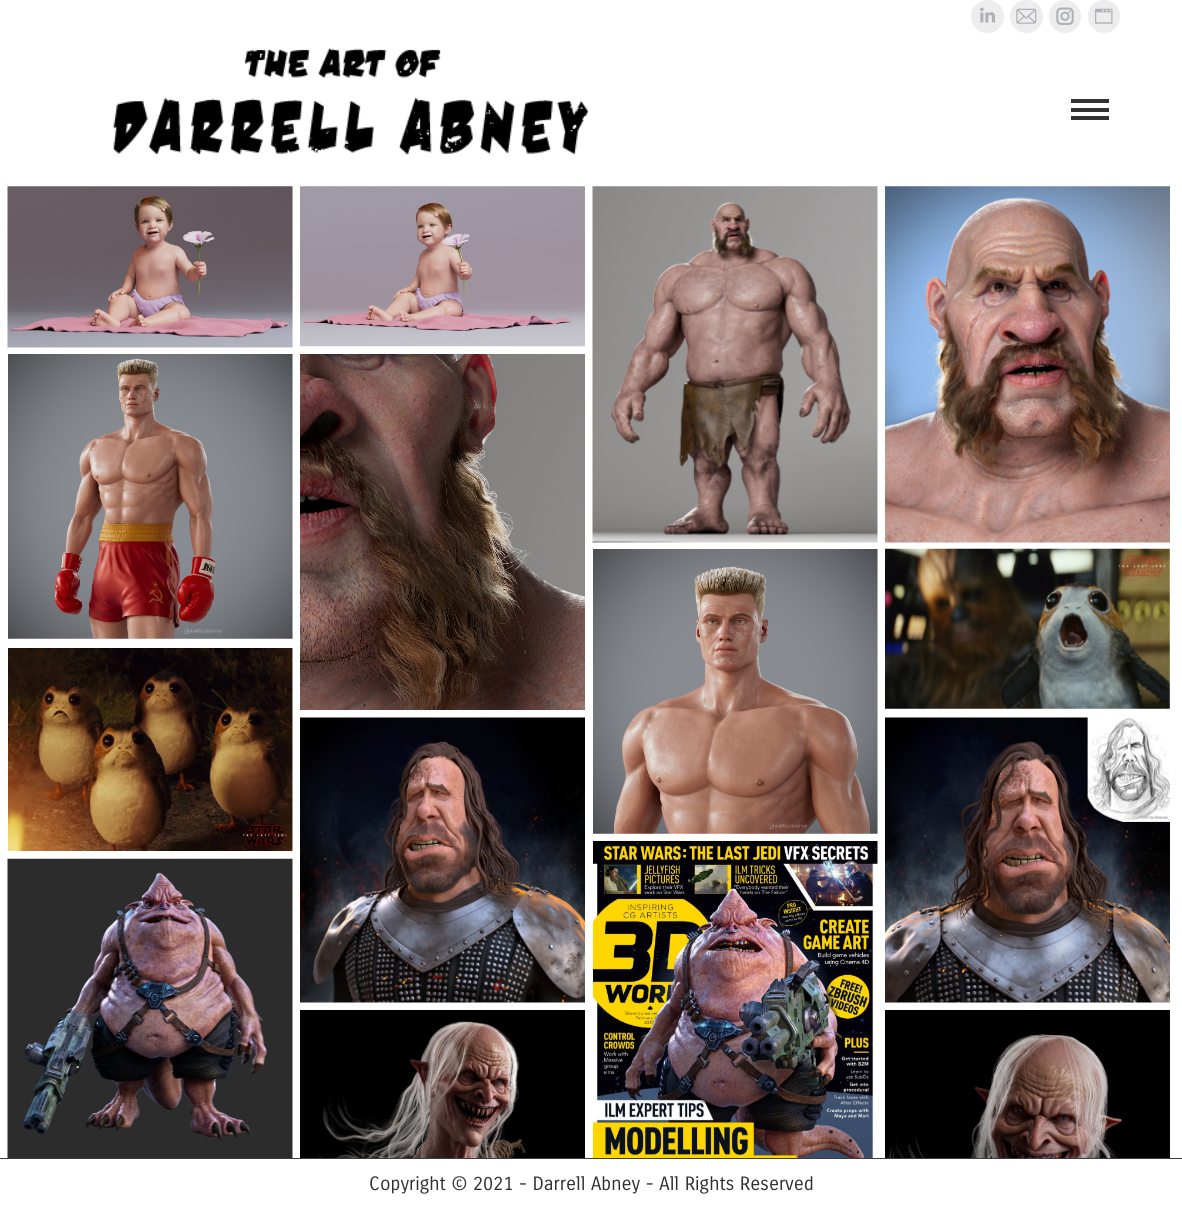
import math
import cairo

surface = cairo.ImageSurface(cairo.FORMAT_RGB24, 1182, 1210)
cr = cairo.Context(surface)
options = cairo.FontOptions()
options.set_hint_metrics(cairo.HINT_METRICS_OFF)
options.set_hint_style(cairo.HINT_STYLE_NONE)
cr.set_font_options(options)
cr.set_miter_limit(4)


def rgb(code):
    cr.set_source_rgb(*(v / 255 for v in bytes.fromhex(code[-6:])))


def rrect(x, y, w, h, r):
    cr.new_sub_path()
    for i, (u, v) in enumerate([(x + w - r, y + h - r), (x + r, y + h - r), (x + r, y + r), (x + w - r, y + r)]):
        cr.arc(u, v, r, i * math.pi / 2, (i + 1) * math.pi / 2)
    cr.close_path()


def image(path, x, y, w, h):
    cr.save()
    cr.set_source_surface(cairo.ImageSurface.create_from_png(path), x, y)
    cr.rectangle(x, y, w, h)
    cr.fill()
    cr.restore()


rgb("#ffffff")
cr.paint()
rgb("#ededed")
cr.arc(987.5, 16.5, 16.5, 0, 2 * math.pi)
cr.fill()
image("img/1.png", 980, 7, 15, 16)
cr.arc(1026.5, 16.5, 16.5, 0, 2 * math.pi)
cr.fill()
image("img/2.png", 1016, 8, 21, 16)
rrect(1049, 0, 32, 33, 16)
cr.fill()
image("img/3.png", 1056, 7, 18, 18)
rrect(1088, 0, 32, 33, 16)
cr.fill()
image("img/4.png", 1095, 8, 18, 16)
image("img/5.png", 113, 48, 476, 107)
for x, y, w, h, color in [
    (1071, 99, 38, 4, "#333333"),
    (1071, 108, 38, 4, "#333333"),
    (1071, 116, 38, 4, "#333333"),
]:
    rgb(color)
    cr.rectangle(x, y, w, h)
    cr.fill()
image("img/6.png", 7, 186, 286, 162)
image("img/7.png", 300, 186, 285, 161)
image("img/8.png", 592, 186, 286, 357)
image("img/9.png", 885, 186, 285, 357)
image("img/10.png", 8, 354, 285, 285)
image("img/11.png", 300, 354, 285, 356)
image("img/12.png", 593, 549, 285, 285)
image("img/13.png", 885, 548, 285, 161)
image("img/14.png", 8, 648, 285, 203)
image("img/15.png", 300, 717, 285, 286)
image("img/16.png", 593, 841, 285, 317)
image("img/17.png", 885, 717, 285, 286)
image("img/18.png", 7, 858, 286, 300)
image("img/19.png", 300, 1010, 285, 148)
image("img/20.png", 885, 1010, 285, 148)
rgb("#3d3d3d")
cr.rectangle(0, 1158, 1182, 1)
cr.fill()
cr.select_font_face("Carrois Gothic")
cr.set_font_size(18.75)
rgb("#303030")
cr.move_to(369, 1190)
cr.show_text("Copyright © 2021 - Darrell Abney - All Rights Reserved")
surface.write_to_png("page.png")
